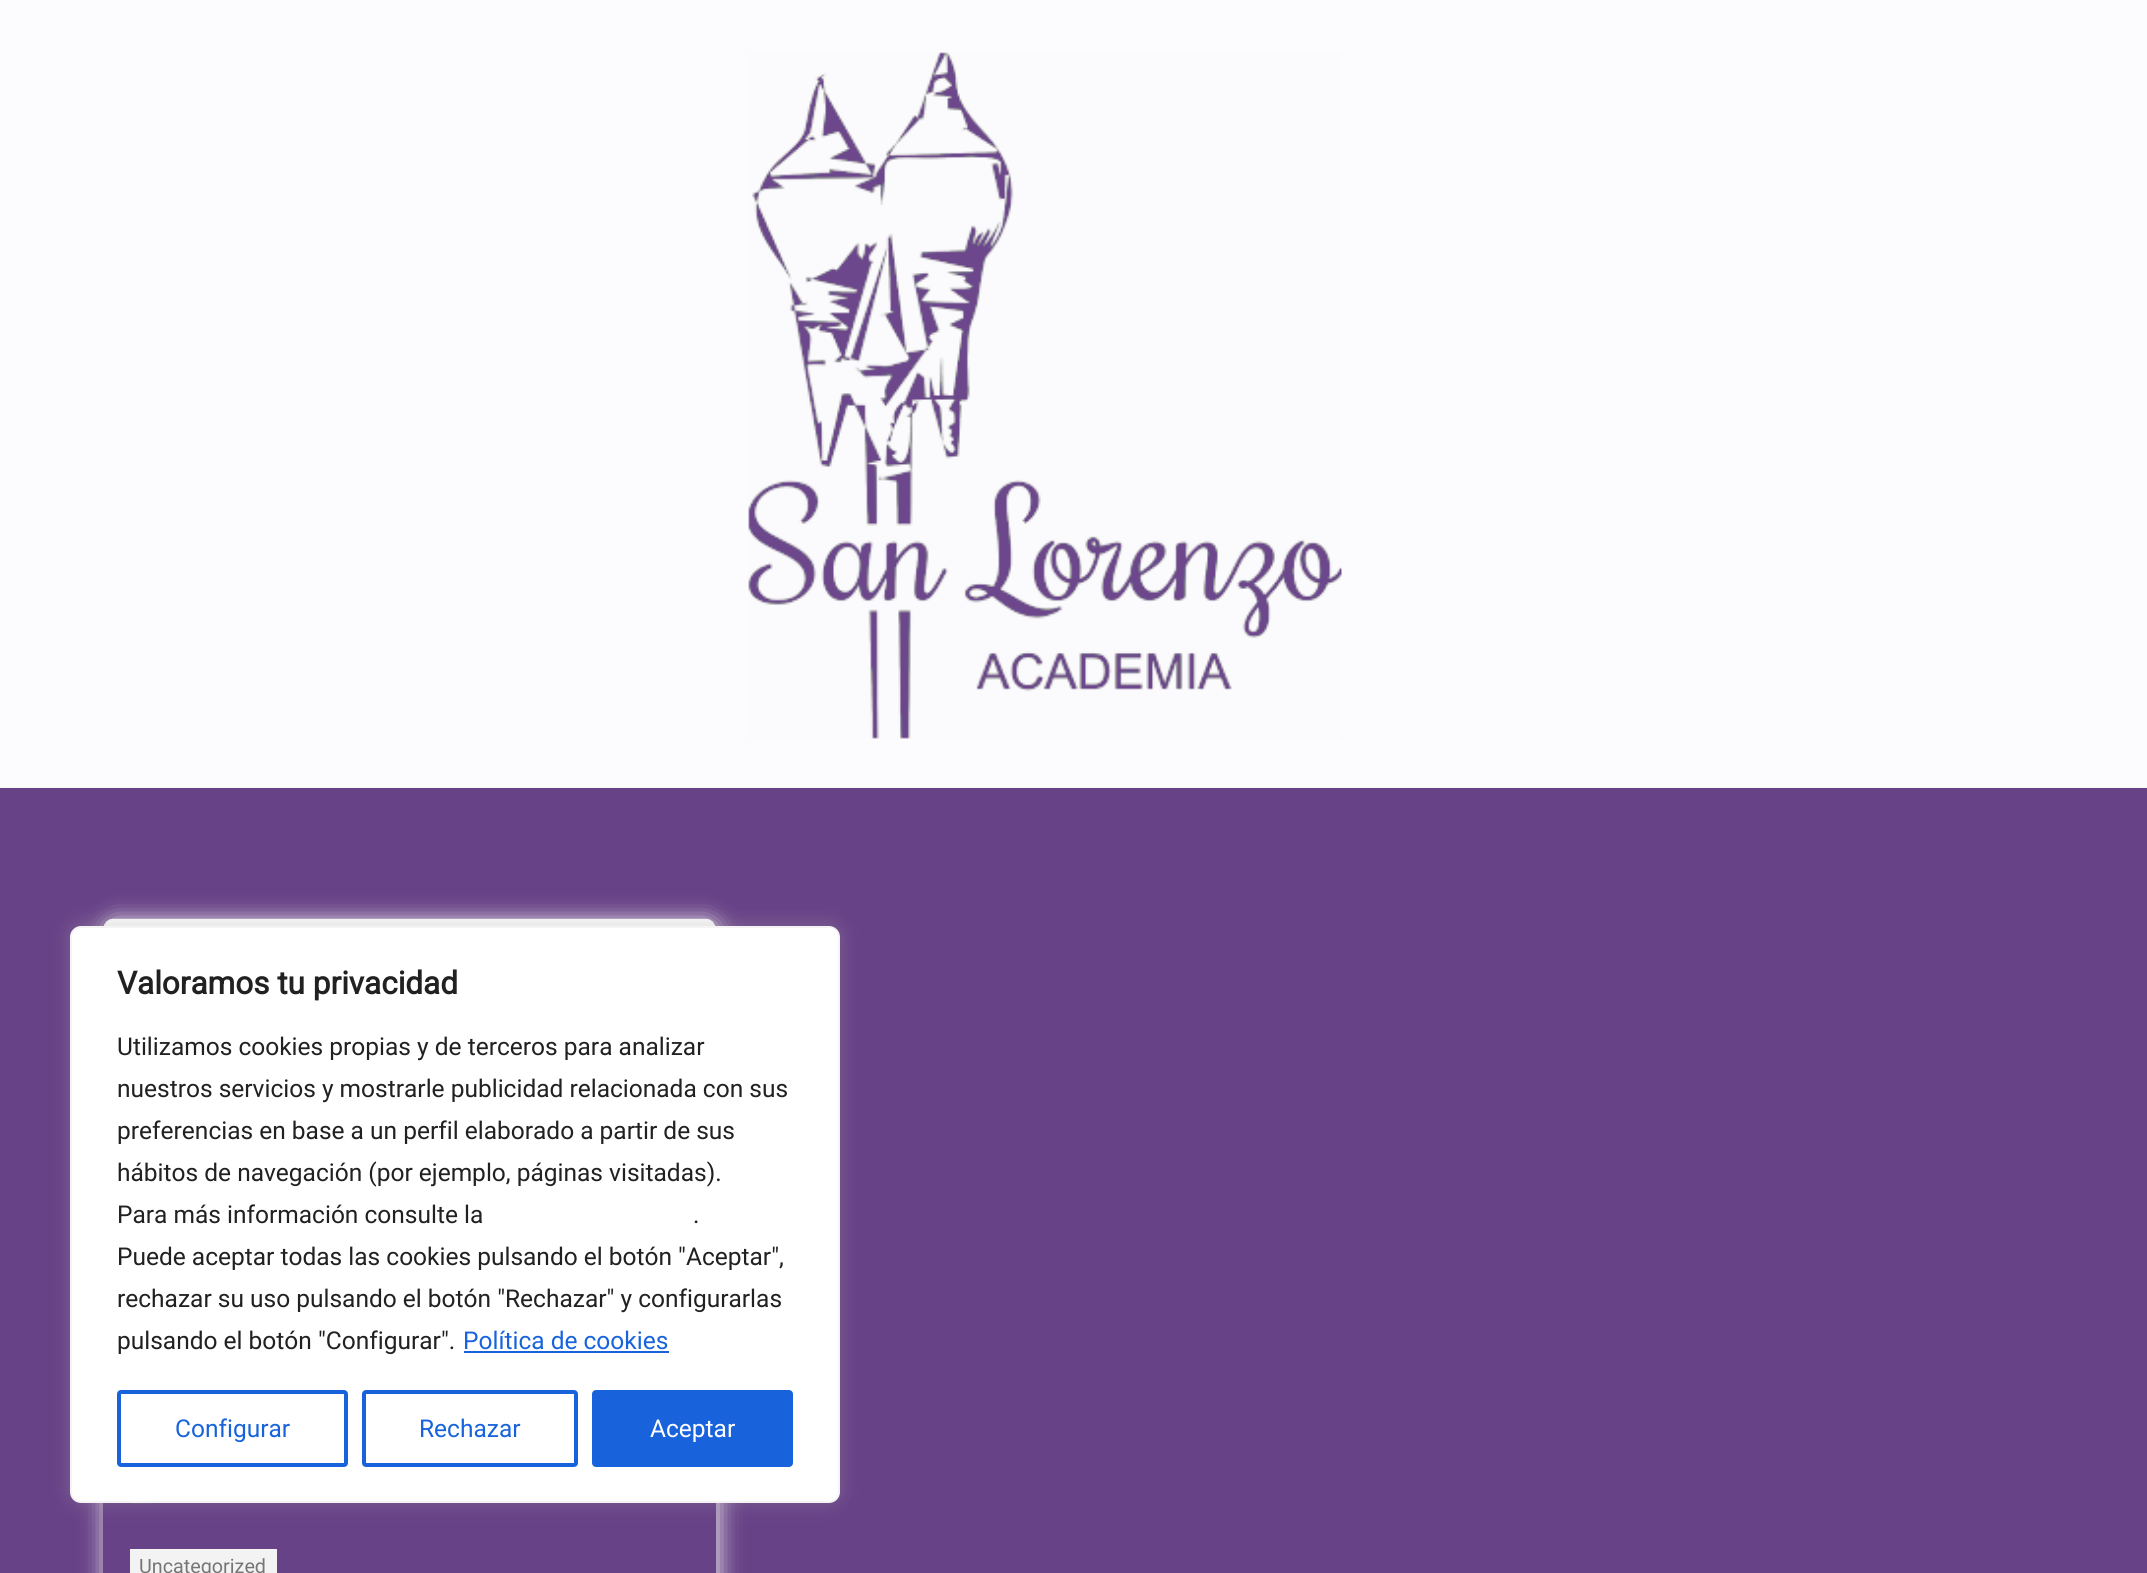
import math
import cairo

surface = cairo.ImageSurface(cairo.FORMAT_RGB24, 2147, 1573)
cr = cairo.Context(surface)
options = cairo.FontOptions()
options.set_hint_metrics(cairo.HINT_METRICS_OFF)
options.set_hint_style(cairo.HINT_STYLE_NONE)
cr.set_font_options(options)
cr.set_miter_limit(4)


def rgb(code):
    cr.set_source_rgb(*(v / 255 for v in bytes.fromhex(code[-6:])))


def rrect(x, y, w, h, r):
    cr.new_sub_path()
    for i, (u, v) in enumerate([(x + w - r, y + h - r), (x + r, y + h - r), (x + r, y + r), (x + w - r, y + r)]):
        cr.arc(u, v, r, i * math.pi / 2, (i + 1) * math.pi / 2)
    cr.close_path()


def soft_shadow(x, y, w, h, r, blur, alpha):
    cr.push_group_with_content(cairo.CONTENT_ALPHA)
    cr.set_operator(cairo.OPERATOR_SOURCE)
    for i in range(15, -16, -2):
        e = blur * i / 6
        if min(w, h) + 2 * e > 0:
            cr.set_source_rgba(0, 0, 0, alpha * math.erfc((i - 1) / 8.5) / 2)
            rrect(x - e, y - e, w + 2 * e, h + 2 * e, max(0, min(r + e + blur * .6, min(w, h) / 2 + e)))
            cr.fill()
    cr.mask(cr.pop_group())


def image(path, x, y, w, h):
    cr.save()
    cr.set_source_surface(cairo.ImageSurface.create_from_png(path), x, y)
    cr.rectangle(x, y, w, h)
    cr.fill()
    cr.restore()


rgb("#684287")
cr.paint()
rgb("#f7f7f7")
cr.rectangle(0, 787, 2147, 1)
cr.fill()
image("img/1.png", 0, 0, 2147, 787)
cr.save()
cr.set_fill_rule(cairo.FILL_RULE_EVEN_ODD)
cr.new_path()
cr.move_to(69, 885)
cr.line_to(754, 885)
cr.line_to(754, 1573)
cr.line_to(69, 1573)
cr.close_path()
cr.move_to(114, 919)
cr.line_to(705, 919)
cr.curve_to(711, 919, 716, 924, 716, 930)
cr.line_to(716, 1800)
cr.curve_to(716, 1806, 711, 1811, 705, 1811)
cr.line_to(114, 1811)
cr.curve_to(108, 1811, 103, 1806, 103, 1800)
cr.line_to(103, 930)
cr.curve_to(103, 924, 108, 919, 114, 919)
cr.close_path()
cr.clip()
rgb("#f2f2f2")
soft_shadow(105, 921, 613, 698, 11, 11.5, 1)
cr.restore()
image("img/2.png", 103, 918, 613, 8)
image("img/3.png", 130, 1503, 22, 1)
rgb("#acabab")
soft_shadow(70, 924, 770, 578, 11, 9, 0.3)
rgb("#ffffff")
rrect(71, 927, 768, 575, 10)
cr.fill_preserve()
rgb("#f4f4f4")
cr.stroke()
rgb("#1863dc")
cr.rectangle(464, 1351, 205, 2)
cr.fill()
rrect(119, 1392, 227, 73, 2)
cr.set_line_width(4)
cr.stroke()
rrect(364, 1392, 212, 73, 2)
cr.stroke()
rrect(594, 1392, 197, 73, 2)
cr.fill_preserve()
cr.stroke()
rgb("#f3f3f3")
cr.rectangle(130, 1549, 147, 24)
cr.fill()
cr.select_font_face("Roboto", cairo.FONT_SLANT_NORMAL, cairo.FONT_WEIGHT_BOLD)
cr.set_font_size(31.5)
rgb("#212121")
cr.move_to(117, 994)
cr.show_text("Valoramos tu privacidad")
cr.select_font_face("Roboto")
cr.set_font_size(24.5)
for x, y, s in [
    (117, 1055, "Utilizamos cookies propias y de terceros para analizar"),
    (117, 1097, "nuestros servicios y mostrarle publicidad relacionada con sus"),
    (117, 1139, "preferencias en base a un perfil elaborado a partir de sus"),
    (117, 1181, "hábitos de navegación (por ejemplo, páginas visitadas)."),
    (117, 1223, "Para más información consulte la"),
    (693, 1223, "."),
    (117, 1265, "Puede aceptar todas las cookies pulsando el botón \"Aceptar\","),
    (117, 1307, "rechazar su uso pulsando el botón \"Rechazar\" y configurarlas"),
    (117, 1349, "pulsando el botón \"Configurar\"."),
]:
    cr.move_to(x, y)
    cr.show_text(s)
rgb("#1863dc")
for x, y, s in [
    (463, 1349, "Política de cookies"),
    (175, 1437, "Configurar"),
    (419, 1437, "Rechazar"),
]:
    cr.move_to(x, y)
    cr.show_text(s)
rgb("#ffffff")
cr.move_to(650, 1437)
cr.show_text("Aceptar")
cr.set_font_size(19.75)
rgb("#767676")
cr.move_to(139, 1573)
cr.show_text("Uncategorized")
surface.write_to_png("page.png")
